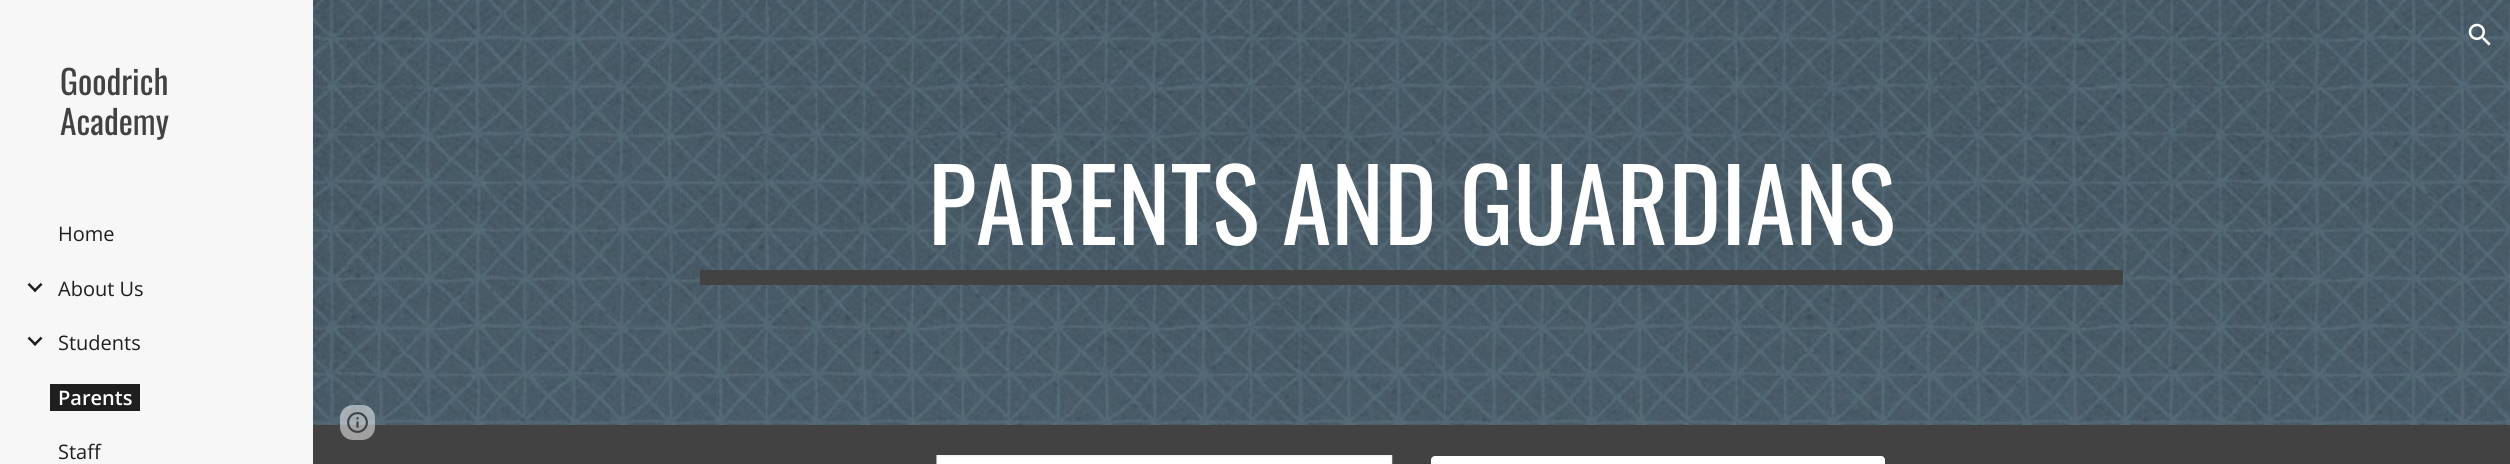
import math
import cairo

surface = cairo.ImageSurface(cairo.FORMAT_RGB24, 2510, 464)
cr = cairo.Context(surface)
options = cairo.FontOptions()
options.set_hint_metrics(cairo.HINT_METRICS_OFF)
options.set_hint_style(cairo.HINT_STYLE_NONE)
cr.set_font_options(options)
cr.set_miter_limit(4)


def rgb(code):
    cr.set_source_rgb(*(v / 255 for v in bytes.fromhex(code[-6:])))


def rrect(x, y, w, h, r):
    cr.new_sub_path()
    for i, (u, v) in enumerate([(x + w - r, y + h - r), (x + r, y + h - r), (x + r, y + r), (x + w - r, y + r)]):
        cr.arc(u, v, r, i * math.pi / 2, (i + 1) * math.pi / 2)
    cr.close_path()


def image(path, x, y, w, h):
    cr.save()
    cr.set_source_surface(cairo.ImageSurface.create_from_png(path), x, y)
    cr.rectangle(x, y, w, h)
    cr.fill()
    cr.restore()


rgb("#ffffff")
cr.paint()
image("img/4.png", 313, 0, 2197, 425)
image("img/1.png", 2468, 23, 23, 23)
rgb("#f7f7f7")
cr.rectangle(0, 0, 313, 464)
cr.fill()
image("img/2.png", 27, 283, 16, 9)
image("img/3.png", 27, 336, 16, 10)
for x, y, w, h, color in [
    (50, 384, 90, 27, "#1f1f1f"),
    (700, 270, 1423, 15, "#424242"),
    (313, 425, 2197, 39, "#424242"),
]:
    rgb(color)
    cr.rectangle(x, y, w, h)
    cr.fill()
image("img/5.png", 936, 455, 457, 9)
rgb("#ffffff")
rrect(1431, 456, 454, 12, 4)
cr.fill()
cr.set_source_rgba(1, 1, 1, 0.5)
rrect(340, 405, 35, 35, 13)
cr.fill()
image("img/6.png", 347, 412, 21, 21)
cr.select_font_face("Oswald")
cr.set_font_size(33.5)
rgb("#424242")
cr.move_to(60, 95)
cr.show_text("Goodrich")
cr.move_to(60, 135)
cr.show_text("Academy")
cr.select_font_face("Open Sans")
cr.set_font_size(20)
rgb("#1f1f1f")
for x, y, s in [
    (58, 241, "Home"),
    (58, 296, "About Us"),
    (58, 350, "Students"),
]:
    cr.move_to(x, y)
    cr.show_text(s)
cr.select_font_face("Open Sans SemiBold")
rgb("#ffffff")
cr.move_to(58, 405)
cr.show_text("Parents")
cr.select_font_face("Open Sans")
rgb("#1f1f1f")
cr.move_to(58, 459)
cr.show_text("Staff")
cr.select_font_face("Oswald")
cr.set_font_size(100)
rgb("#ffffff")
cr.move_to(928, 245)
cr.show_text("PARENTS AND GUARDIANS")
surface.write_to_png("page.png")
